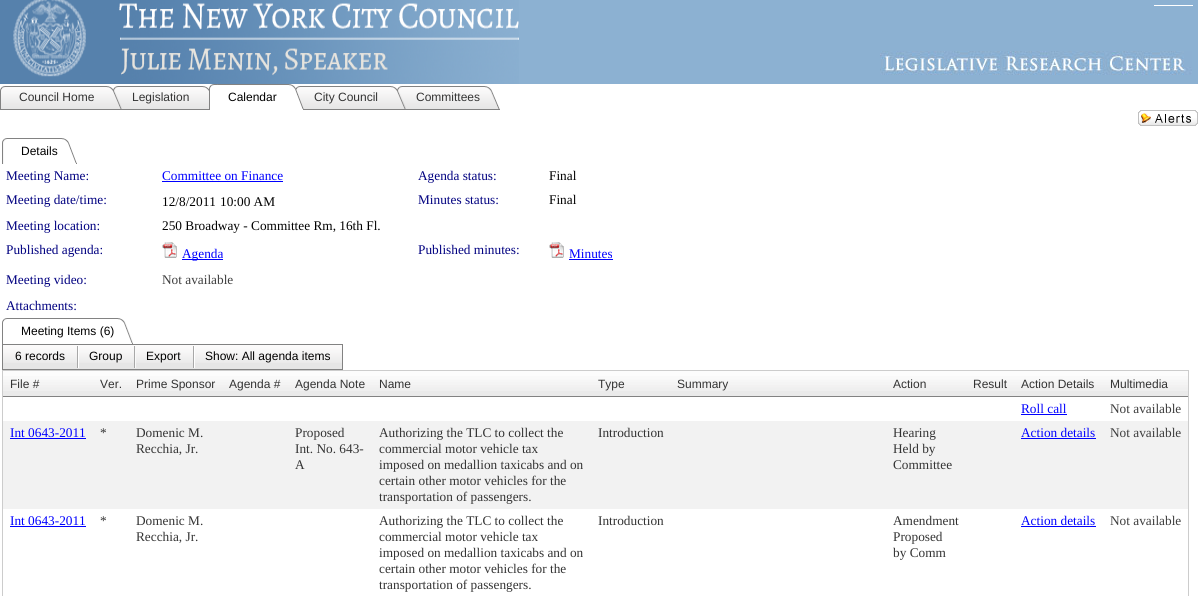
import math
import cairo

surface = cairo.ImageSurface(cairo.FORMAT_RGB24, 1198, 596)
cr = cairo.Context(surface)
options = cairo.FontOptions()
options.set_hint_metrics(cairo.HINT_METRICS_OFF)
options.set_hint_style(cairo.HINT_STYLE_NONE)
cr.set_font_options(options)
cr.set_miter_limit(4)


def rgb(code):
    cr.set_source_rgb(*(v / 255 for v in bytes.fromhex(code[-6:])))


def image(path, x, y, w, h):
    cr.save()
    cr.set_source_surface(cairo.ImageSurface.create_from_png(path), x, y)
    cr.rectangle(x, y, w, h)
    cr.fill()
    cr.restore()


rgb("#ffffff")
cr.paint()
rgb("#8cb1d2")
cr.rectangle(519, 0, 679, 84)
cr.fill()
image("img/1.png", 0, 0, 519, 84)
image("img/2.png", 880, 51, 312, 24)
rgb("#ffffff")
cr.rectangle(1154, 5, 39, 1)
cr.fill()
image("img/3.png", 0, 86, 9, 24)
image("img/4.png", 9, 86, 104, 24)
image("img/5.png", 113, 86, 9, 24)
image("img/6.png", 122, 86, 87, 24)
image("img/7.png", 209, 84, 9, 26)
image("img/8.png", 218, 84, 77, 5)
image("img/9.png", 295, 86, 9, 24)
image("img/10.png", 304, 86, 93, 24)
image("img/11.png", 397, 86, 9, 24)
image("img/12.png", 406, 86, 94, 24)
image("img/13.png", 1138, 110, 60, 16)
image("img/14.png", 2, 138, 9, 26)
image("img/15.png", 11, 138, 66, 26)
rgb("#0000ff")
cr.rectangle(162, 181, 121, 1)
cr.fill()
image("img/16.png", 162, 242, 15, 16)
cr.rectangle(182, 259, 41, 1)
cr.fill()
image("img/16.png", 549, 242, 15, 16)
cr.rectangle(569, 259, 44, 1)
cr.fill()
image("img/17.png", 2, 318, 9, 26)
image("img/18.png", 11, 318, 122, 26)
rgb("#e6e6e6")
cr.rectangle(3, 363, 339, 6)
cr.fill()
image("img/19.png", 3, 345, 339, 18)
cr.rectangle(2.5, 344.5, 340, 25)
rgb("#828282")
cr.set_line_width(1)
cr.stroke()
image("img/20.png", 77, 346, 2, 22)
image("img/21.png", 134, 346, 2, 22)
image("img/20.png", 193, 346, 2, 22)
cr.rectangle(2.5, 370.5, 1186, 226)
rgb("#cccccc")
cr.stroke()
rgb("#eaeaea")
cr.rectangle(3, 391, 1185, 5)
cr.fill()
image("img/22.png", 3, 371, 90, 20)
rgb("#828282")
cr.rectangle(3, 396, 1185, 1)
cr.fill()
image("img/23.png", 93, 371, 36, 20)
image("img/24.png", 129, 371, 93, 20)
image("img/25.png", 222, 371, 66, 20)
image("img/26.png", 288, 371, 84, 20)
image("img/27.png", 372, 371, 219, 20)
image("img/28.png", 591, 371, 79, 20)
image("img/29.png", 670, 371, 216, 20)
image("img/30.png", 886, 371, 80, 20)
image("img/31.png", 966, 371, 48, 20)
image("img/32.png", 1014, 371, 89, 20)
image("img/33.png", 1103, 371, 85, 20)
for x, y, w, h, color in [
    (1021, 414, 46, 1, "#0000ff"),
    (3, 421, 1185, 88, "#f2f2f2"),
    (10, 438, 76, 1, "#0000ff"),
    (1021, 438, 75, 1, "#0000ff"),
    (10, 526, 76, 1, "#0000ff"),
    (1021, 526, 75, 1, "#0000ff"),
]:
    rgb(color)
    cr.rectangle(x, y, w, h)
    cr.fill()
cr.select_font_face("Liberation Sans")
cr.set_font_size(12)
rgb("#333333")
cr.move_to(19, 101)
cr.show_text("Council Home")
cr.move_to(132, 101)
cr.show_text("Legislation")
rgb("#000000")
cr.move_to(228, 101)
cr.show_text("Calendar")
rgb("#333333")
cr.move_to(314, 101)
cr.show_text("City Council")
cr.move_to(416, 101)
cr.show_text("Committees")
rgb("#000000")
cr.move_to(21, 155)
cr.show_text("Details")
cr.select_font_face("Liberation Serif")
cr.set_font_size(13.3)
rgb("#000080")
cr.move_to(6, 180)
cr.show_text("Meeting Name:")
rgb("#0000ff")
cr.move_to(162, 180)
cr.show_text("Committee on Finance")
rgb("#000080")
cr.move_to(418, 180)
cr.show_text("Agenda status:")
rgb("#000000")
cr.move_to(549, 180)
cr.show_text("Final")
rgb("#000080")
cr.move_to(6, 204)
cr.show_text("Meeting date/time:")
rgb("#000000")
cr.move_to(162, 206)
cr.show_text("12/8/2011")
cr.move_to(220, 206)
cr.show_text("10:00 AM")
rgb("#000080")
cr.move_to(418, 204)
cr.show_text("Minutes status:")
rgb("#000000")
cr.move_to(549, 204)
cr.show_text("Final")
rgb("#000080")
cr.move_to(6, 230)
cr.show_text("Meeting location:")
rgb("#000000")
cr.move_to(162, 230)
cr.show_text("250 Broadway - Committee Rm, 16th Fl.")
rgb("#000080")
cr.move_to(6, 254)
cr.show_text("Published agenda:")
rgb("#0000ff")
cr.move_to(182, 258)
cr.show_text("Agenda")
rgb("#000080")
cr.move_to(418, 254)
cr.show_text("Published minutes:")
rgb("#0000ff")
cr.move_to(569, 258)
cr.show_text("Minutes")
rgb("#000080")
cr.move_to(6, 284)
cr.show_text("Meeting video:")
rgb("#3d3d3d")
cr.move_to(162, 284)
cr.show_text("Not available")
rgb("#000080")
cr.move_to(6, 310)
cr.show_text("Attachments:")
cr.select_font_face("Liberation Sans")
cr.set_font_size(12)
rgb("#000000")
for x, y, s in [
    (21, 335, "Meeting Items (6)"),
    (15, 360, "6 records"),
    (89, 360, "Group"),
    (146, 360, "Export"),
    (205, 360, "Show: All agenda items"),
]:
    cr.move_to(x, y)
    cr.show_text(s)
rgb("#333333")
for x, y, s in [
    (10, 388, "File #"),
    (100, 388, "Ver."),
    (136, 388, "Prime Sponsor"),
    (229, 388, "Agenda #"),
    (295, 388, "Agenda Note"),
    (379, 388, "Name"),
    (598, 388, "Type"),
    (677, 388, "Summary"),
    (893, 388, "Action"),
    (973, 388, "Result"),
    (1021, 388, "Action Details"),
    (1110, 388, "Multimedia"),
]:
    cr.move_to(x, y)
    cr.show_text(s)
cr.select_font_face("Liberation Serif")
cr.set_font_size(13.3)
rgb("#0000ff")
cr.move_to(1021, 413)
cr.show_text("Roll call")
rgb("#3d3d3d")
cr.move_to(1110, 413)
cr.show_text("Not available")
rgb("#0000ff")
cr.move_to(10, 437)
cr.show_text("Int 0643-2011")
rgb("#333333")
for x, y, s in [
    (100, 437, "*"),
    (136, 437, "Domenic M."),
    (136, 453, "Recchia, Jr."),
    (295, 437, "Proposed"),
    (295, 453, "Int. No. 643-"),
    (295, 469, "A"),
    (379, 437, "Authorizing the TLC to collect the"),
    (379, 453, "commercial motor vehicle tax"),
    (379, 469, "imposed on medallion taxicabs and on"),
    (379, 485, "certain other motor vehicles for the"),
    (379, 501, "transportation of passengers."),
    (598, 437, "Introduction"),
    (893, 437, "Hearing"),
    (893, 453, "Held by"),
    (893, 469, "Committee"),
]:
    cr.move_to(x, y)
    cr.show_text(s)
rgb("#0000ff")
cr.move_to(1021, 437)
cr.show_text("Action details")
rgb("#3d3d3d")
cr.move_to(1110, 437)
cr.show_text("Not available")
rgb("#0000ff")
cr.move_to(10, 525)
cr.show_text("Int 0643-2011")
rgb("#333333")
for x, y, s in [
    (100, 525, "*"),
    (136, 525, "Domenic M."),
    (136, 541, "Recchia, Jr."),
    (379, 525, "Authorizing the TLC to collect the"),
    (379, 541, "commercial motor vehicle tax"),
    (379, 557, "imposed on medallion taxicabs and on"),
    (379, 573, "certain other motor vehicles for the"),
    (379, 589, "transportation of passengers."),
    (598, 525, "Introduction"),
    (893, 525, "Amendment"),
    (893, 541, "Proposed"),
    (893, 557, "by Comm"),
]:
    cr.move_to(x, y)
    cr.show_text(s)
rgb("#0000ff")
cr.move_to(1021, 525)
cr.show_text("Action details")
rgb("#3d3d3d")
cr.move_to(1110, 525)
cr.show_text("Not available")
surface.write_to_png("page.png")
